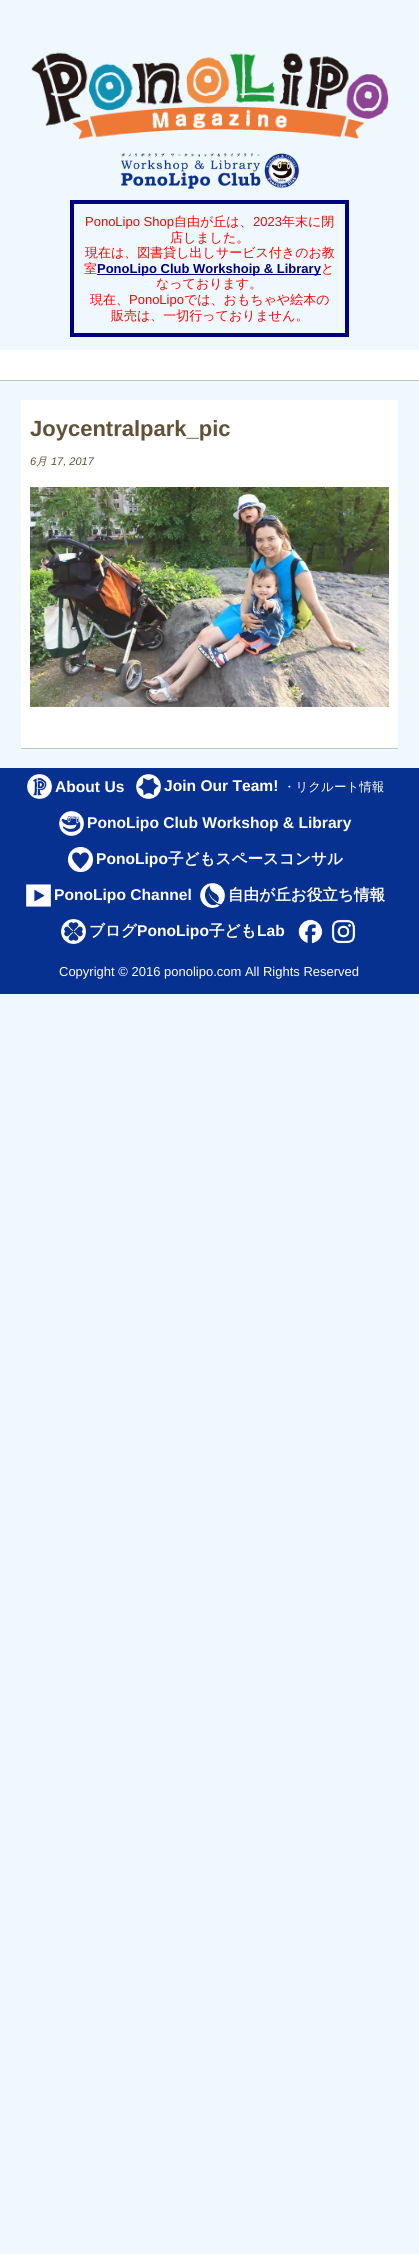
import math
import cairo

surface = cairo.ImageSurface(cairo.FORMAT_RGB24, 419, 2254)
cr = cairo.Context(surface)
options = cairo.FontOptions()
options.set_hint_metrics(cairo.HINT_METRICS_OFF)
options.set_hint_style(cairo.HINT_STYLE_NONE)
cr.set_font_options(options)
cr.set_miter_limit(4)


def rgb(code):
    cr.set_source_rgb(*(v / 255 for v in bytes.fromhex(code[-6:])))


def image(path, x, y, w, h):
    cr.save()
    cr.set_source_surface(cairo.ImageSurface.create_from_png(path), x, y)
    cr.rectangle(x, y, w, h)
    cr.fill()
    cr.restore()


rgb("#eff8fd")
cr.paint()
image("img/1.png", 31, 52, 358, 88)
image("img/2.png", 120, 153, 179, 36)
cr.rectangle(72, 202, 275, 133)
rgb("#000080")
cr.set_line_width(4)
cr.stroke()
for x, y, w, h, color in [
    (97, 274, 224, 1, "#000080"),
    (0, 380, 419, 1, "#bfc6ca"),
    (0, 350, 419, 30, "#ffffff"),
    (21, 748, 377, 1, "#bfc6ca"),
    (21, 400, 377, 348, "#ffffff"),
]:
    rgb(color)
    cr.rectangle(x, y, w, h)
    cr.fill()
image("img/3.png", 30, 487, 359, 220)
rgb("#073190")
cr.rectangle(0, 768, 419, 226)
cr.fill()
image("img/4.png", 27, 774, 25, 25)
image("img/5.png", 136, 774, 25, 25)
image("img/6.png", 59, 811, 25, 25)
image("img/7.png", 68, 847, 25, 25)
image("img/8.png", 26, 884, 25, 23)
image("img/9.png", 200, 883, 25, 25)
image("img/10.png", 61, 919, 25, 25)
image("img/11.png", 298, 919, 25, 25)
image("img/12.png", 331, 919, 24, 25)
cr.select_font_face("Liberation Sans")
cr.set_font_size(13)
rgb("#ff0000")
cr.move_to(85, 226)
cr.show_text("PonoLipo Shop")
cr.select_font_face("WenQuanYi Zen Hei Medium")
cr.move_to(174, 226)
cr.show_text("自由が丘は、")
cr.select_font_face("Liberation Sans")
cr.move_to(253, 226)
cr.show_text("2023")
cr.select_font_face("WenQuanYi Zen Hei Medium")
for x, y, s in [
    (282, 226, "年末に閉"),
    (170, 242, "店しました。"),
    (85, 257, "現在は、図書貸し出しサービス付きのお教"),
    (84, 273, "室"),
]:
    cr.move_to(x, y)
    cr.show_text(s)
cr.select_font_face("Liberation Sans", cairo.FONT_SLANT_NORMAL, cairo.FONT_WEIGHT_BOLD)
rgb("#000080")
cr.move_to(97, 273)
cr.show_text("PonoLipo Club Workshoip & Library")
cr.select_font_face("WenQuanYi Zen Hei Medium")
rgb("#ff0000")
for x, y, s in [
    (321, 273, "と"),
    (156, 288, "なっております。"),
    (90, 304, "現在、"),
]:
    cr.move_to(x, y)
    cr.show_text(s)
cr.select_font_face("Liberation Sans")
cr.move_to(129, 304)
cr.show_text("PonoLipo")
cr.select_font_face("WenQuanYi Zen Hei Medium")
cr.move_to(184, 304)
cr.show_text("では、おもちゃや絵本の")
cr.move_to(111, 320)
cr.show_text("販売は、一切行っておりません。")
cr.select_font_face("Liberation Sans", cairo.FONT_SLANT_NORMAL, cairo.FONT_WEIGHT_BOLD)
cr.set_font_size(22)
rgb("#615137")
cr.move_to(30, 436)
cr.show_text("Joycentralpark_pic")
cr.select_font_face("Liberation Sans", cairo.FONT_SLANT_ITALIC)
cr.set_font_size(11)
cr.move_to(30, 465)
cr.show_text("6")
cr.select_font_face("WenQuanYi Zen Hei Medium", cairo.FONT_SLANT_ITALIC)
cr.move_to(36, 465)
cr.show_text("月")
cr.select_font_face("Liberation Sans", cairo.FONT_SLANT_ITALIC)
cr.move_to(51, 465)
cr.show_text("17, 2017")
cr.select_font_face("Liberation Sans", cairo.FONT_SLANT_NORMAL, cairo.FONT_WEIGHT_BOLD)
cr.set_font_size(15.6)
rgb("#ffffff")
cr.move_to(55, 792)
cr.show_text("About Us")
cr.move_to(164, 791)
cr.show_text("Join Our Team!")
cr.select_font_face("WenQuanYi Zen Hei Medium")
cr.set_font_size(12.5)
cr.move_to(283, 791)
cr.show_text("・リクルート情報")
cr.select_font_face("Liberation Sans", cairo.FONT_SLANT_NORMAL, cairo.FONT_WEIGHT_BOLD)
cr.set_font_size(15.6)
cr.move_to(87, 828)
cr.show_text("PonoLipo Club Workshop & Library")
cr.move_to(96, 864)
cr.show_text("PonoLipo")
cr.select_font_face("WenQuanYi Zen Hei", cairo.FONT_SLANT_NORMAL, cairo.FONT_WEIGHT_BOLD)
cr.move_to(168, 864)
cr.show_text("子どもスペースコンサル")
cr.select_font_face("Liberation Sans", cairo.FONT_SLANT_NORMAL, cairo.FONT_WEIGHT_BOLD)
cr.move_to(54, 900)
cr.show_text("PonoLipo Channel")
cr.select_font_face("WenQuanYi Zen Hei", cairo.FONT_SLANT_NORMAL, cairo.FONT_WEIGHT_BOLD)
cr.move_to(228, 900)
cr.show_text("自由が丘お役立ち情報")
cr.move_to(89, 936)
cr.show_text("ブログ")
cr.select_font_face("Liberation Sans", cairo.FONT_SLANT_NORMAL, cairo.FONT_WEIGHT_BOLD)
cr.move_to(137, 936)
cr.show_text("PonoLipo")
cr.select_font_face("WenQuanYi Zen Hei", cairo.FONT_SLANT_NORMAL, cairo.FONT_WEIGHT_BOLD)
cr.move_to(209, 936)
cr.show_text("子ども")
cr.select_font_face("Liberation Sans", cairo.FONT_SLANT_NORMAL, cairo.FONT_WEIGHT_BOLD)
cr.move_to(257, 936)
cr.show_text("Lab")
cr.select_font_face("Liberation Sans")
cr.set_font_size(13)
cr.move_to(59, 976)
cr.show_text("Copyright © 2016 ponolipo.com All Rights Reserved")
surface.write_to_png("page.png")
